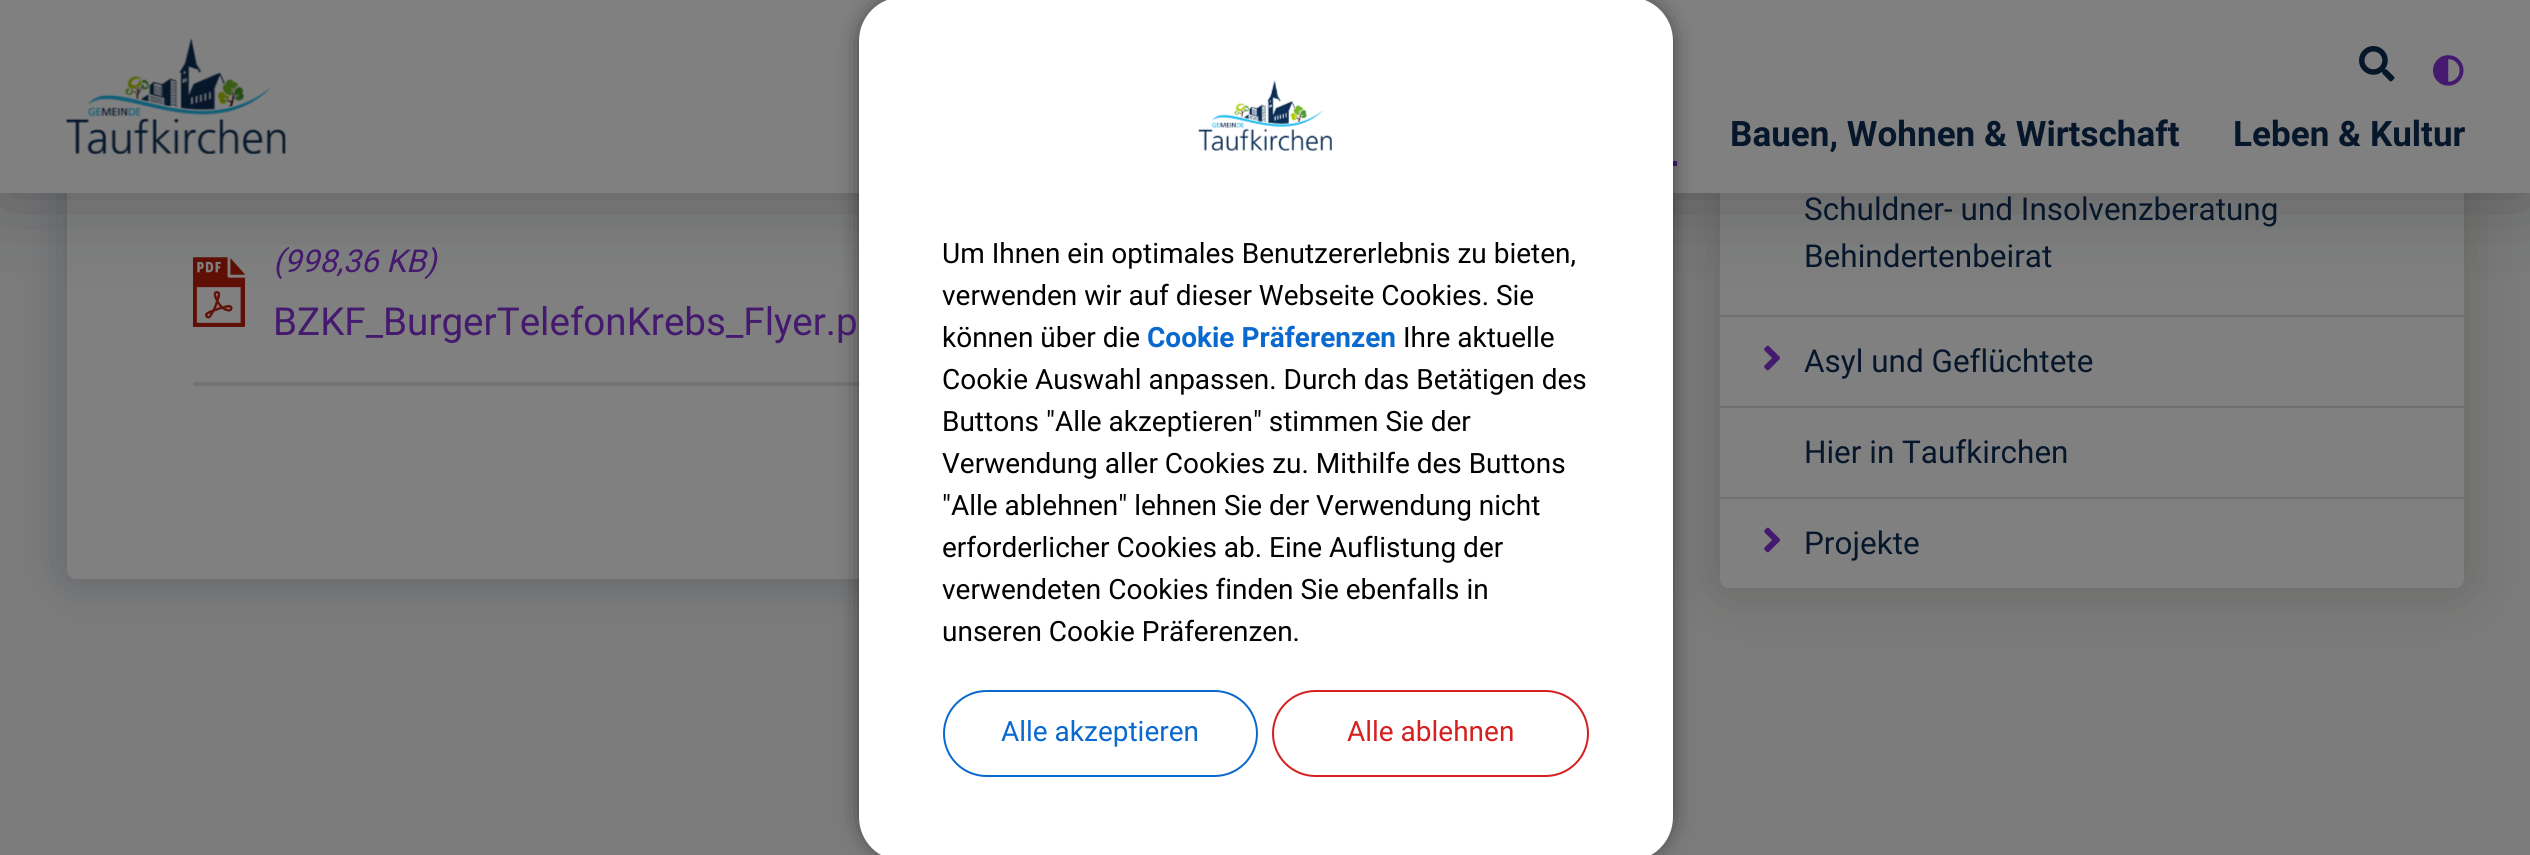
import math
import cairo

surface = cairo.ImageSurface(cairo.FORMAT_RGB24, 2530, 855)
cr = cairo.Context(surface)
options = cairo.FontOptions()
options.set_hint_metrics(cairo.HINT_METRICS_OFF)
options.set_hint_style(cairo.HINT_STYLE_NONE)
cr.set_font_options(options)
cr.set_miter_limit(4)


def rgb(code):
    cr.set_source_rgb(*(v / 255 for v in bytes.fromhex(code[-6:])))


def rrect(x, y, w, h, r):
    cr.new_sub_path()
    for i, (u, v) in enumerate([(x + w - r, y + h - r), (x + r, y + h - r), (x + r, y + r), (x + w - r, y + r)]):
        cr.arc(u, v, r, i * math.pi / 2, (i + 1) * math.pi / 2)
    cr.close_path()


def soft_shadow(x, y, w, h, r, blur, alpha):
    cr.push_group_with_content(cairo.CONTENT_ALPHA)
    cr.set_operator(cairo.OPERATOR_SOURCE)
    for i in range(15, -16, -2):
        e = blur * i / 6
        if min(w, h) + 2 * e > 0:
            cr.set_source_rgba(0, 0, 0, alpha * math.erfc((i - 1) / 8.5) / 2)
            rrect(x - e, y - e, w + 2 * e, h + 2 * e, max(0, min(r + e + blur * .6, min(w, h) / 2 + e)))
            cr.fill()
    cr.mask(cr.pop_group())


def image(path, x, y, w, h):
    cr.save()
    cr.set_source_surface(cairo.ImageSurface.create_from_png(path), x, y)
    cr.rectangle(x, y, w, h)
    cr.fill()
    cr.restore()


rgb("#7b7b7b")
cr.paint()
rgb("#07172b")
soft_shadow(67, -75, 1569, 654, 9, 22, 0.25)
rgb("#808080")
rrect(67, -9, 1569, 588, 9)
cr.fill()
image("img/4.png", 193, 257, 52, 70)
rgb("#39362c")
soft_shadow(1720, -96, 744, 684, 9, 29, 0.33)
rgb("#808080")
rrect(1720, -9, 744, 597, 9)
cr.fill()
rgb("#6e7073")
cr.rectangle(1720, 315, 744, 2)
cr.fill()
rgb("#111319")
soft_shadow(0, 0, 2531, 193, 0, 44, 0.33)
rgb("#808080")
cr.rectangle(0, 0, 2530, 193)
cr.fill()
image("img/1.png", 66, 38, 220, 117)
image("img/2.png", 2359, 46, 36, 36)
image("img/3.png", 2433, 55, 31, 31)
for x, y, w, h, color in [
    (1673, 161, 4, 5, "#44196e"),
    (193, 382, 666, 4, "#737373"),
    (1720, 406, 744, 2, "#6e7073"),
]:
    rgb(color)
    cr.rectangle(x, y, w, h)
    cr.fill()
image("img/5.png", 1764, 345, 16, 26)
cr.rectangle(1720, 497, 744, 2)
cr.fill()
image("img/5.png", 1764, 527, 16, 26)
rgb("#000000")
soft_shadow(868, 5, 796, 847, 35, 13, 1)
rgb("#ffffff")
rrect(859, -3, 814, 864, 44)
cr.fill()
image("img/6.png", 1198, 80, 134, 71)
rrect(944, 691, 313, 85, 42.5)
rgb("#0a69ce")
cr.stroke()
rrect(1273, 691, 315, 85, 42.5)
rgb("#d52020")
cr.stroke()
cr.select_font_face("Roboto", cairo.FONT_SLANT_NORMAL, cairo.FONT_WEIGHT_BOLD)
cr.set_font_size(35.1)
rgb("#07172b")
cr.move_to(1730, 146)
cr.show_text("Bauen, Wohnen & Wirtschaft")
cr.move_to(2233, 146)
cr.show_text("Leben & Kultur")
cr.select_font_face("Roboto", cairo.FONT_SLANT_ITALIC)
cr.set_font_size(31.5)
rgb("#44196e")
cr.move_to(273, 272)
cr.show_text("(998,36 KB)")
cr.select_font_face("Roboto")
cr.set_font_size(38.6)
cr.move_to(273, 335)
cr.show_text("BZKF_BurgerTelefonKrebs_Flyer.p")
cr.set_font_size(31.5)
rgb("#07172b")
for x, y, s in [
    (1804, 220, "Schuldner- und Insolvenzberatung"),
    (1804, 267, "Behindertenbeirat"),
    (1804, 372, "Asyl und Geflüchtete"),
    (1804, 463, "Hier in Taufkirchen"),
    (1804, 554, "Projekte"),
]:
    cr.move_to(x, y)
    cr.show_text(s)
cr.set_font_size(28)
rgb("#000000")
for x, y, s in [
    (942, 263, "Um Ihnen ein optimales Benutzererlebnis zu bieten,"),
    (942, 305, "verwenden wir auf dieser Webseite Cookies. Sie"),
    (942, 347, "können über die"),
]:
    cr.move_to(x, y)
    cr.show_text(s)
cr.select_font_face("Roboto", cairo.FONT_SLANT_NORMAL, cairo.FONT_WEIGHT_BOLD)
rgb("#0a69ce")
cr.move_to(1147, 347)
cr.show_text("Cookie Präferenzen")
cr.select_font_face("Roboto")
rgb("#000000")
for x, y, s in [
    (1403, 347, "Ihre aktuelle"),
    (942, 389, "Cookie Auswahl anpassen. Durch das Betätigen des"),
    (942, 431, "Buttons \"Alle akzeptieren\" stimmen Sie der"),
    (942, 473, "Verwendung aller Cookies zu. Mithilfe des Buttons"),
    (942, 515, "\"Alle ablehnen\" lehnen Sie der Verwendung nicht"),
    (942, 557, "erforderlicher Cookies ab. Eine Auflistung der"),
    (942, 599, "verwendeten Cookies finden Sie ebenfalls in"),
    (942, 641, "unseren Cookie Präferenzen."),
]:
    cr.move_to(x, y)
    cr.show_text(s)
rgb("#0a69ce")
cr.move_to(1001, 741)
cr.show_text("Alle akzeptieren")
rgb("#d52020")
cr.move_to(1347, 741)
cr.show_text("Alle ablehnen")
surface.write_to_png("page.png")
